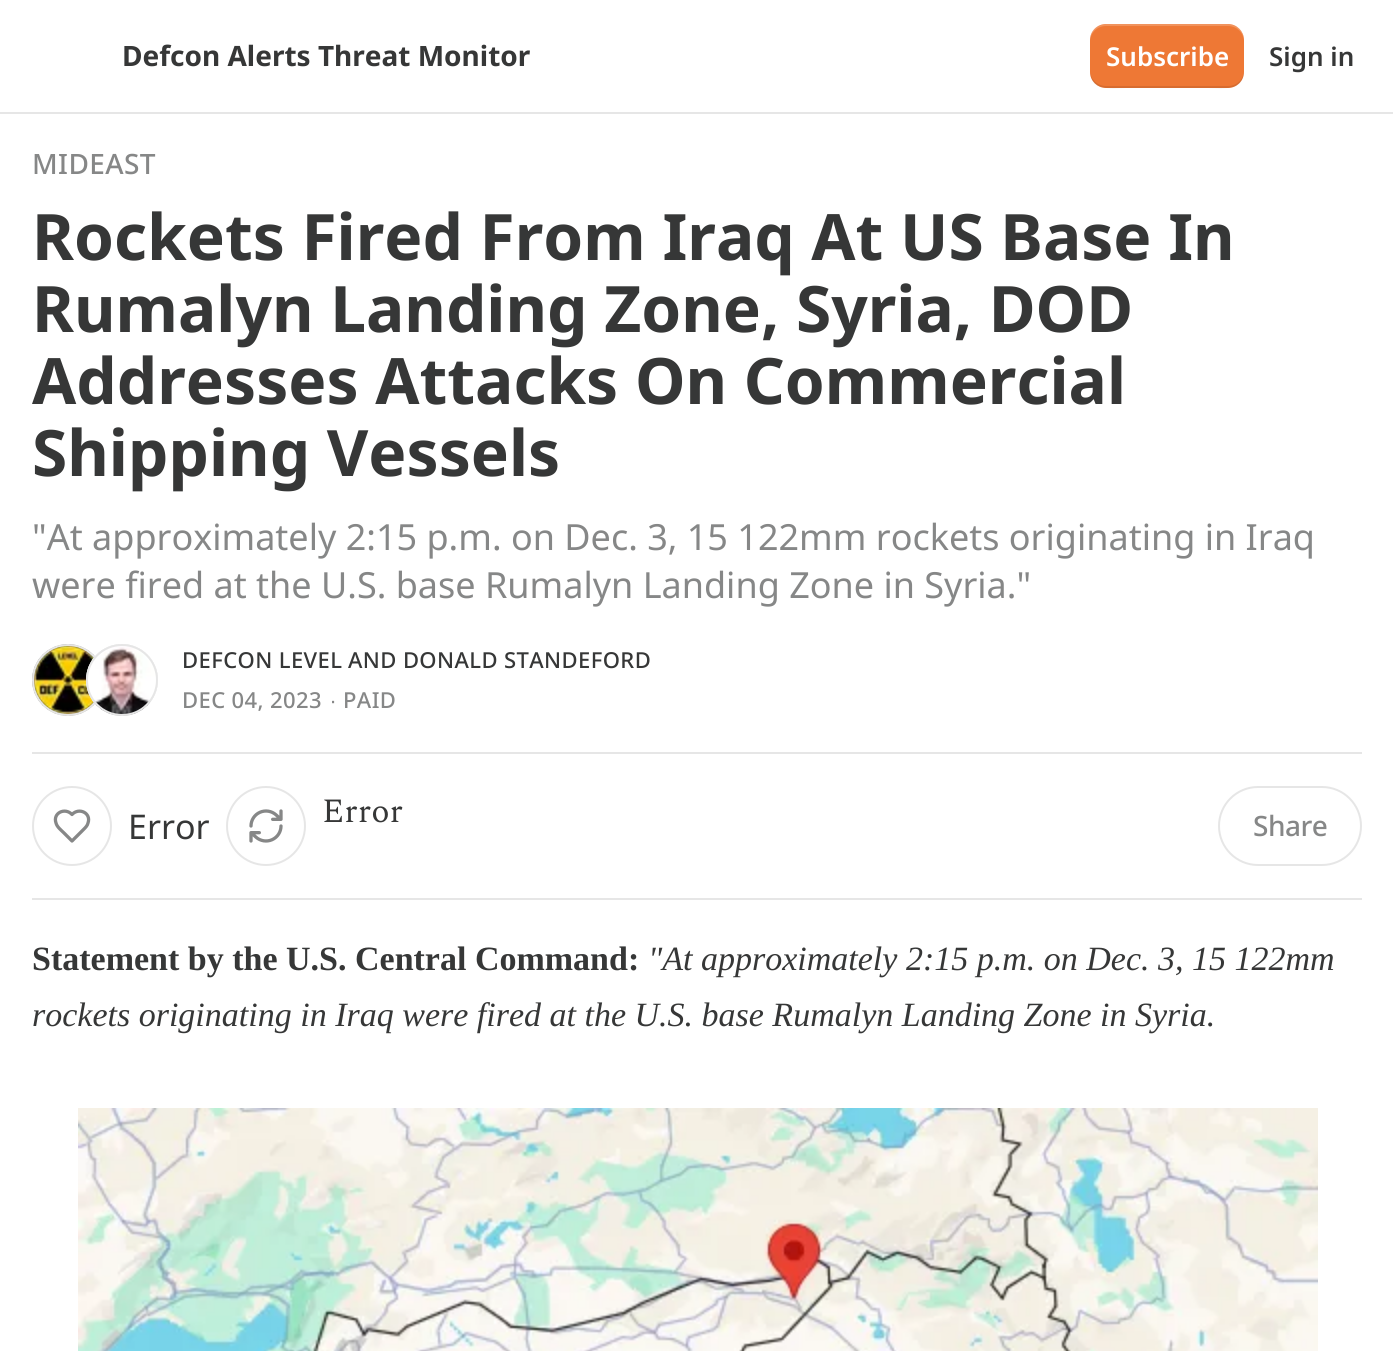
import math
import cairo

surface = cairo.ImageSurface(cairo.FORMAT_RGB24, 1393, 1351)
cr = cairo.Context(surface)
options = cairo.FontOptions()
options.set_hint_metrics(cairo.HINT_METRICS_OFF)
options.set_hint_style(cairo.HINT_STYLE_NONE)
cr.set_font_options(options)
cr.set_miter_limit(4)


def rgb(code):
    cr.set_source_rgb(*(v / 255 for v in bytes.fromhex(code[-6:])))


def tracked(x, y, s, letter, word):
    cr.move_to(x, y)
    for ch in s:
        cr.show_text(ch)
        cr.rel_move_to(letter + word * (ch == ' '), 0)


def rrect(x, y, w, h, r):
    cr.new_sub_path()
    for i, (u, v) in enumerate([(x + w - r, y + h - r), (x + r, y + h - r), (x + r, y + r), (x + w - r, y + r)]):
        cr.arc(u, v, r, i * math.pi / 2, (i + 1) * math.pi / 2)
    cr.close_path()


def image(path, x, y, w, h):
    cr.save()
    cr.set_source_surface(cairo.ImageSurface.create_from_png(path), x, y)
    cr.rectangle(x, y, w, h)
    cr.fill()
    cr.restore()


rgb("#ffffff")
cr.paint()
rgb("#e6e6e6")
cr.rectangle(0, 112, 1393, 2)
cr.fill()
rgb("#ee7835")
rrect(1090, 24, 154, 64, 16)
cr.fill()
cr.set_source_rgba(0, 0, 0, 0.1)
cr.new_path()
cr.move_to(1090, 70)
cr.curve_to(1090, 92, 1110, 88, 1126, 88)
cr.line_to(1208, 88)
cr.curve_to(1224, 88, 1244, 92, 1244, 70)
cr.curve_to(1244, 79, 1237, 86, 1228, 86)
cr.line_to(1106, 86)
cr.curve_to(1097, 86, 1090, 79, 1090, 70)
cr.close_path()
cr.fill()
cr.set_source_rgba(1, 1, 1, 0.2)
cr.new_path()
cr.move_to(1106, 26)
cr.line_to(1228, 26)
cr.curve_to(1237, 26, 1244, 33, 1244, 42)
cr.curve_to(1244, 20, 1224, 24, 1208, 24)
cr.line_to(1126, 24)
cr.curve_to(1110, 24, 1090, 20, 1090, 42)
cr.curve_to(1090, 33, 1097, 26, 1106, 26)
cr.close_path()
cr.fill()
cr.arc(68, 680, 35, 0, 2 * math.pi)
rgb("#e6e6e6")
cr.stroke()
image("img/1.png", 32, 644, 63, 72)
cr.arc(68, 680, 35, 0, 2 * math.pi)
cr.stroke()
cr.arc(122, 680, 35, 0, 2 * math.pi)
cr.stroke()
image("img/2.png", 86, 644, 72, 72)
cr.arc(122, 680, 35, 0, 2 * math.pi)
cr.stroke()
cr.rectangle(32, 752, 1330, 2)
cr.fill()
cr.rectangle(32, 898, 1330, 2)
cr.fill()
cr.arc(266, 826, 39, 0, 2 * math.pi)
cr.stroke()
image("img/3.png", 249, 809, 34, 34)
cr.arc(72, 826, 39, 0, 2 * math.pi)
cr.stroke()
cr.new_path()
cr.move_to(83.5, 829.5)
cr.curve_to(85.5, 827.5, 87.5, 825.5, 88, 823)
cr.curve_to(91.5, 813, 79, 807, 72, 814.5)
cr.curve_to(65, 807, 52.5, 813, 56, 823)
cr.curve_to(57, 827, 61, 830, 64, 833)
cr.line_to(72, 841)
cr.close_path()
rgb("#868787")
cr.set_line_width(3.3)
cr.set_line_cap(cairo.LINE_CAP_ROUND)
cr.set_line_join(cairo.LINE_JOIN_ROUND)
cr.stroke()
rrect(1219, 787, 142, 78, 39)
rgb("#e6e6e6")
cr.set_line_width(2)
cr.set_line_cap(cairo.LINE_CAP_BUTT)
cr.set_line_join(cairo.LINE_JOIN_MITER)
cr.stroke()
image("img/4.png", 78, 1108, 1240, 243)
cr.select_font_face("Noto Sans", cairo.FONT_SLANT_NORMAL, cairo.FONT_WEIGHT_BOLD)
cr.set_font_size(28)
rgb("#363737")
cr.move_to(122, 66)
cr.show_text("Defcon Alerts Threat Monitor")
cr.select_font_face("Noto Sans SemiBold")
cr.set_font_size(26)
rgb("#ffffff")
cr.move_to(1106, 66)
cr.show_text("Subscribe")
rgb("#363737")
cr.move_to(1269, 66)
cr.show_text("Sign in")
cr.select_font_face("Noto Sans Medium")
cr.set_font_size(28)
rgb("#868787")
tracked(32, 174, "MIDEAST", 0.4, 0)
cr.select_font_face("Noto Sans", cairo.FONT_SLANT_NORMAL, cairo.FONT_WEIGHT_BOLD)
cr.set_font_size(64)
rgb("#363737")
for x, y, s in [
    (32, 260, "Rockets Fired From Iraq At US Base In"),
    (32, 332, "Rumalyn Landing Zone, Syria, DOD"),
    (32, 404, "Addresses Attacks On Commercial"),
    (32, 476, "Shipping Vessels"),
]:
    cr.move_to(x, y)
    cr.show_text(s)
cr.select_font_face("Noto Sans")
cr.set_font_size(36)
rgb("#868787")
cr.move_to(32, 550)
cr.show_text("\"At approximately 2:15 p.m. on Dec. 3, 15 122mm rockets originating in Iraq")
cr.move_to(32, 598)
cr.show_text("were fired at the U.S. base Rumalyn Landing Zone in Syria.\"")
cr.select_font_face("Noto Sans Medium")
cr.set_font_size(22)
rgb("#363737")
tracked(182, 668, "DEFCON LEVEL", 0.4, 0)
tracked(348, 668, "AND DONALD STANDEFORD", 0.4, 0)
rgb("#868787")
tracked(182, 708, "DEC 04, 2023", 0.4, 0)
cr.select_font_face("Liberation Sans")
tracked(330, 708, "∙", 0.4, 0)
cr.select_font_face("Noto Sans Medium")
tracked(343, 708, "PAID", 0.4, 0)
cr.select_font_face("Spectral")
cr.set_font_size(34)
rgb("#363737")
cr.move_to(322, 822)
cr.show_text("Error")
cr.select_font_face("Noto Sans")
cr.move_to(128, 839)
cr.show_text("Error")
cr.select_font_face("Noto Sans Medium")
cr.set_font_size(28)
rgb("#868787")
tracked(1253, 836, "Share", -0.5, 0)
cr.select_font_face("Liberation Serif", cairo.FONT_SLANT_NORMAL, cairo.FONT_WEIGHT_BOLD)
cr.set_font_size(34)
rgb("#363737")
cr.move_to(32, 970)
cr.show_text("Statement by the U.S. Central Command:")
cr.select_font_face("Liberation Serif", cairo.FONT_SLANT_ITALIC)
cr.move_to(648, 970)
cr.show_text("\"At approximately 2:15 p.m. on Dec. 3, 15 122mm")
cr.move_to(32, 1026)
cr.show_text("rockets originating in Iraq were fired at the U.S. base Rumalyn Landing Zone in Syria.")
surface.write_to_png("page.png")
